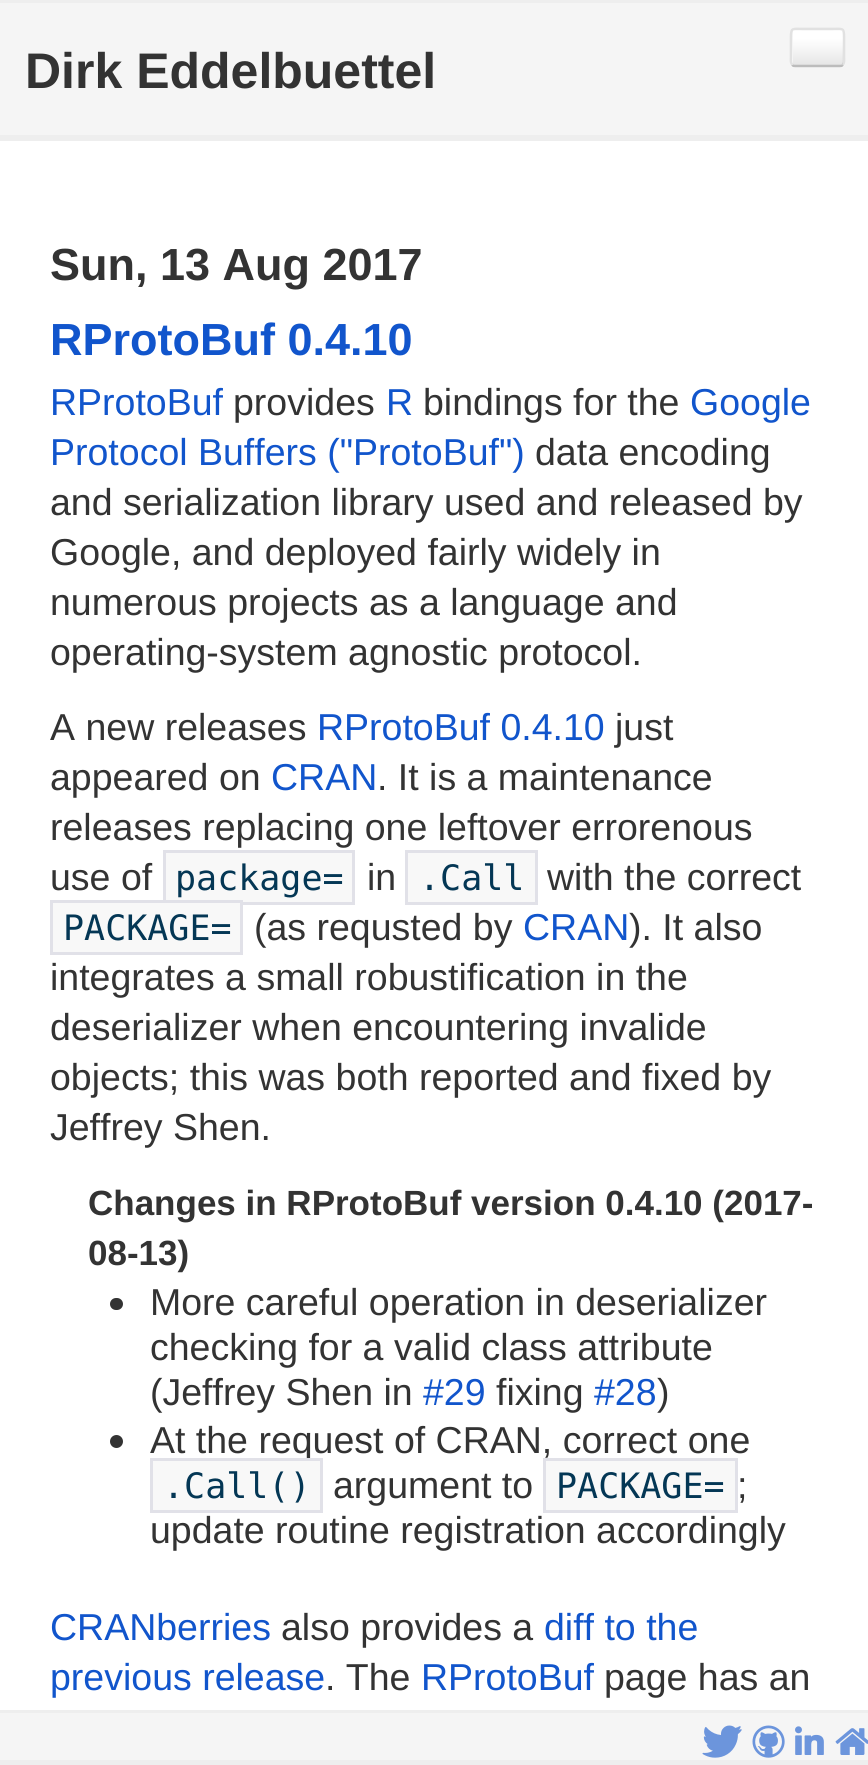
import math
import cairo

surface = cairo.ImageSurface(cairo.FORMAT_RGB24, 868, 1765)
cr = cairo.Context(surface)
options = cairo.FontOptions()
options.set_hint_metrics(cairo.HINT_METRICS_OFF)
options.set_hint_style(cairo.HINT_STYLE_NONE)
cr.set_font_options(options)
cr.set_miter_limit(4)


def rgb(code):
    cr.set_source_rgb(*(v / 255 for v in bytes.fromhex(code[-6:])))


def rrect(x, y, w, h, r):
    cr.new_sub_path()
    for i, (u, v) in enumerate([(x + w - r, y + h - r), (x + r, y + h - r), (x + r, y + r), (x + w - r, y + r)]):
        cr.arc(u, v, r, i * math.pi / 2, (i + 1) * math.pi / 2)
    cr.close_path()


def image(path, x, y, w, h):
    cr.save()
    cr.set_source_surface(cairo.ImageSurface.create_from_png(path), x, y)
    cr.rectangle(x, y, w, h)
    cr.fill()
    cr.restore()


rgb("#ffffff")
cr.paint()
for x, y, w, h, color in [
    (0, 3, 868, 132, "#f5f5f5"),
    (0, 135, 868, 6, "#eeeeee"),
    (0, 0, 868, 3, "#eeeeee"),
]:
    rgb(color)
    cr.rectangle(x, y, w, h)
    cr.fill()
rgb("#fafafa")
rrect(790, 28, 55, 40, 5)
cr.fill()
gradient = cairo.LinearGradient(818, 30, 818, 65)
gradient.add_color_stop_rgba(0, 1, 1, 1, 1)
gradient.add_color_stop_rgba(0.25, 1, 1, 1, 1)
gradient.add_color_stop_rgba(1, 0.902, 0.902, 0.902, 1)
cr.set_source(gradient)
cr.rectangle(793, 30, 50, 35)
cr.fill()
cr.new_path()
cr.move_to(842.5, 65)
cr.curve_to(842, 66, 841, 66, 840, 66)
cr.line_to(795, 66)
cr.curve_to(794, 66, 793, 66, 792.5, 65)
rgb("#bcbcbc")
cr.set_line_width(2.5)
cr.stroke()
cr.new_path()
cr.move_to(792.5, 65)
cr.curve_to(790.5, 63.5, 791, 59.5, 791, 57.5)
cr.line_to(791, 37.5)
cr.curve_to(791, 27.5, 792, 29, 802.5, 29)
cr.line_to(832.5, 29)
cr.curve_to(843, 29, 844, 27.5, 844, 37.5)
cr.line_to(844, 57.5)
cr.curve_to(844, 59.5, 844.5, 63.5, 842.5, 65)
cr.set_source_rgba(0, 0, 0, 0.1)
cr.stroke()
rgb("#f8f8f8")
cr.rectangle(164.5, 851.5, 189, 52)
cr.fill_preserve()
rgb("#e1e1e8")
cr.set_line_width(3)
cr.stroke()
rgb("#f8f8f8")
cr.rectangle(406.5, 851.5, 130, 52)
cr.fill_preserve()
rgb("#e1e1e8")
cr.stroke()
rgb("#f8f8f8")
cr.rectangle(51.5, 901.5, 190, 52)
cr.fill_preserve()
rgb("#e1e1e8")
cr.stroke()
rgb("#333333")
rrect(110, 1298, 13, 12, 6)
cr.fill()
cr.arc(116.5, 1441.5, 6.5, 0, 2 * math.pi)
cr.fill()
for x, y, w, h, color in [
    (0, 1713, 868, 47, "#f5f5f5"),
    (0, 1760, 868, 5, "#eeeeee"),
    (0, 1710, 868, 3, "#eeeeee"),
]:
    rgb(color)
    cr.rectangle(x, y, w, h)
    cr.fill()
image("img/1.png", 702, 1725, 40, 33)
image("img/2.png", 752, 1725, 33, 33)
image("img/3.png", 795, 1726, 29, 29)
image("img/4.png", 835, 1728, 33, 27)
cr.select_font_face("Liberation Sans", cairo.FONT_SLANT_NORMAL, cairo.FONT_WEIGHT_BOLD)
cr.set_font_size(50)
rgb("#333333")
cr.move_to(25, 88)
cr.show_text("Dirk Eddelbuettel")
cr.set_font_size(45)
cr.move_to(50, 280)
cr.show_text("Sun, 13 Aug 2017")
rgb("#1155cc")
cr.move_to(50, 355)
cr.show_text("RProtoBuf 0.4.10")
cr.select_font_face("Liberation Sans")
cr.set_font_size(37.5)
cr.move_to(50, 415)
cr.show_text("RProtoBuf")
rgb("#333333")
cr.move_to(233, 415)
cr.show_text("provides")
rgb("#1155cc")
cr.move_to(386, 415)
cr.show_text("R")
rgb("#333333")
cr.move_to(423, 415)
cr.show_text("bindings for the")
rgb("#1155cc")
cr.move_to(690, 415)
cr.show_text("Google")
cr.move_to(50, 465)
cr.show_text("Protocol Buffers (\"ProtoBuf\")")
rgb("#333333")
for x, y, s in [
    (535, 465, "data encoding"),
    (50, 515, "and serialization library used and released by"),
    (50, 565, "Google, and deployed fairly widely in"),
    (50, 615, "numerous projects as a language and"),
    (50, 665, "operating-system agnostic protocol."),
    (50, 740, "A new releases"),
]:
    cr.move_to(x, y)
    cr.show_text(s)
rgb("#1155cc")
cr.move_to(317, 740)
cr.show_text("RProtoBuf 0.4.10")
rgb("#333333")
cr.move_to(615, 740)
cr.show_text("just")
cr.move_to(50, 790)
cr.show_text("appeared on")
rgb("#1155cc")
cr.move_to(271, 790)
cr.show_text("CRAN")
rgb("#333333")
for x, y, s in [
    (377, 790, ". It is a maintenance"),
    (50, 840, "releases replacing one leftover errorenous"),
    (50, 890, "use of"),
]:
    cr.move_to(x, y)
    cr.show_text(s)
cr.select_font_face("DejaVu Sans Mono")
cr.set_font_size(35)
rgb("#043755")
cr.move_to(175, 890)
cr.show_text("package=")
cr.select_font_face("Liberation Sans")
cr.set_font_size(37.5)
rgb("#333333")
cr.move_to(367, 890)
cr.show_text("in")
cr.select_font_face("DejaVu Sans Mono")
cr.set_font_size(35)
rgb("#043755")
cr.move_to(419, 890)
cr.show_text(".Call")
cr.select_font_face("Liberation Sans")
cr.set_font_size(37.5)
rgb("#333333")
cr.move_to(547, 890)
cr.show_text("with the correct")
cr.select_font_face("DejaVu Sans Mono")
cr.set_font_size(35)
rgb("#043755")
cr.move_to(63, 940)
cr.show_text("PACKAGE=")
cr.select_font_face("Liberation Sans")
cr.set_font_size(37.5)
rgb("#333333")
cr.move_to(254, 940)
cr.show_text("(as requsted by")
rgb("#1155cc")
cr.move_to(523, 940)
cr.show_text("CRAN")
rgb("#333333")
for x, y, s in [
    (629, 940, "). It also"),
    (50, 990, "integrates a small robustification in the"),
    (50, 1040, "deserializer when encountering invalide"),
    (50, 1090, "objects; this was both reported and fixed by"),
    (50, 1140, "Jeffrey Shen."),
]:
    cr.move_to(x, y)
    cr.show_text(s)
cr.select_font_face("Liberation Sans", cairo.FONT_SLANT_NORMAL, cairo.FONT_WEIGHT_BOLD)
cr.set_font_size(35)
cr.move_to(88, 1215)
cr.show_text("Changes in RProtoBuf version 0.4.10 (2017-")
cr.move_to(88, 1265)
cr.show_text("08-13)")
cr.select_font_face("Liberation Sans")
cr.set_font_size(37.5)
for x, y, s in [
    (150, 1315, "More careful operation in deserializer"),
    (150, 1360, "checking for a valid class attribute"),
    (150, 1405, "(Jeffrey Shen in"),
]:
    cr.move_to(x, y)
    cr.show_text(s)
rgb("#1155cc")
cr.move_to(423, 1405)
cr.show_text("#29")
rgb("#333333")
cr.move_to(496, 1405)
cr.show_text("fixing")
rgb("#1155cc")
cr.move_to(594, 1405)
cr.show_text("#28")
rgb("#333333")
cr.move_to(657, 1405)
cr.show_text(")")
cr.move_to(150, 1453)
cr.show_text("At the request of CRAN, correct one")
rgb("#f8f8f8")
cr.rectangle(151.5, 1459.5, 170, 52)
cr.fill_preserve()
rgb("#e1e1e8")
cr.stroke()
cr.select_font_face("DejaVu Sans Mono")
cr.set_font_size(35)
rgb("#043755")
cr.move_to(163, 1498)
cr.show_text(".Call()")
cr.select_font_face("Liberation Sans")
cr.set_font_size(37.5)
rgb("#333333")
cr.move_to(333, 1498)
cr.show_text("argument to")
rgb("#f8f8f8")
cr.rectangle(544.5, 1459.5, 192, 52)
cr.fill_preserve()
rgb("#e1e1e8")
cr.stroke()
cr.select_font_face("DejaVu Sans Mono")
cr.set_font_size(35)
rgb("#043755")
cr.move_to(556, 1498)
cr.show_text("PACKAGE=")
cr.select_font_face("Liberation Sans")
cr.set_font_size(37.5)
rgb("#333333")
cr.move_to(737, 1498)
cr.show_text(";")
cr.move_to(150, 1543)
cr.show_text("update routine registration accordingly")
rgb("#1155cc")
cr.move_to(50, 1640)
cr.show_text("CRANberries")
rgb("#333333")
cr.move_to(281, 1640)
cr.show_text("also provides a")
rgb("#1155cc")
cr.move_to(544, 1640)
cr.show_text("diff to the")
cr.move_to(50, 1690)
cr.show_text("previous release")
rgb("#333333")
cr.move_to(325, 1690)
cr.show_text(". The")
rgb("#1155cc")
cr.move_to(421, 1690)
cr.show_text("RProtoBuf")
rgb("#333333")
cr.move_to(604, 1690)
cr.show_text("page has an")
surface.write_to_png("page.png")
